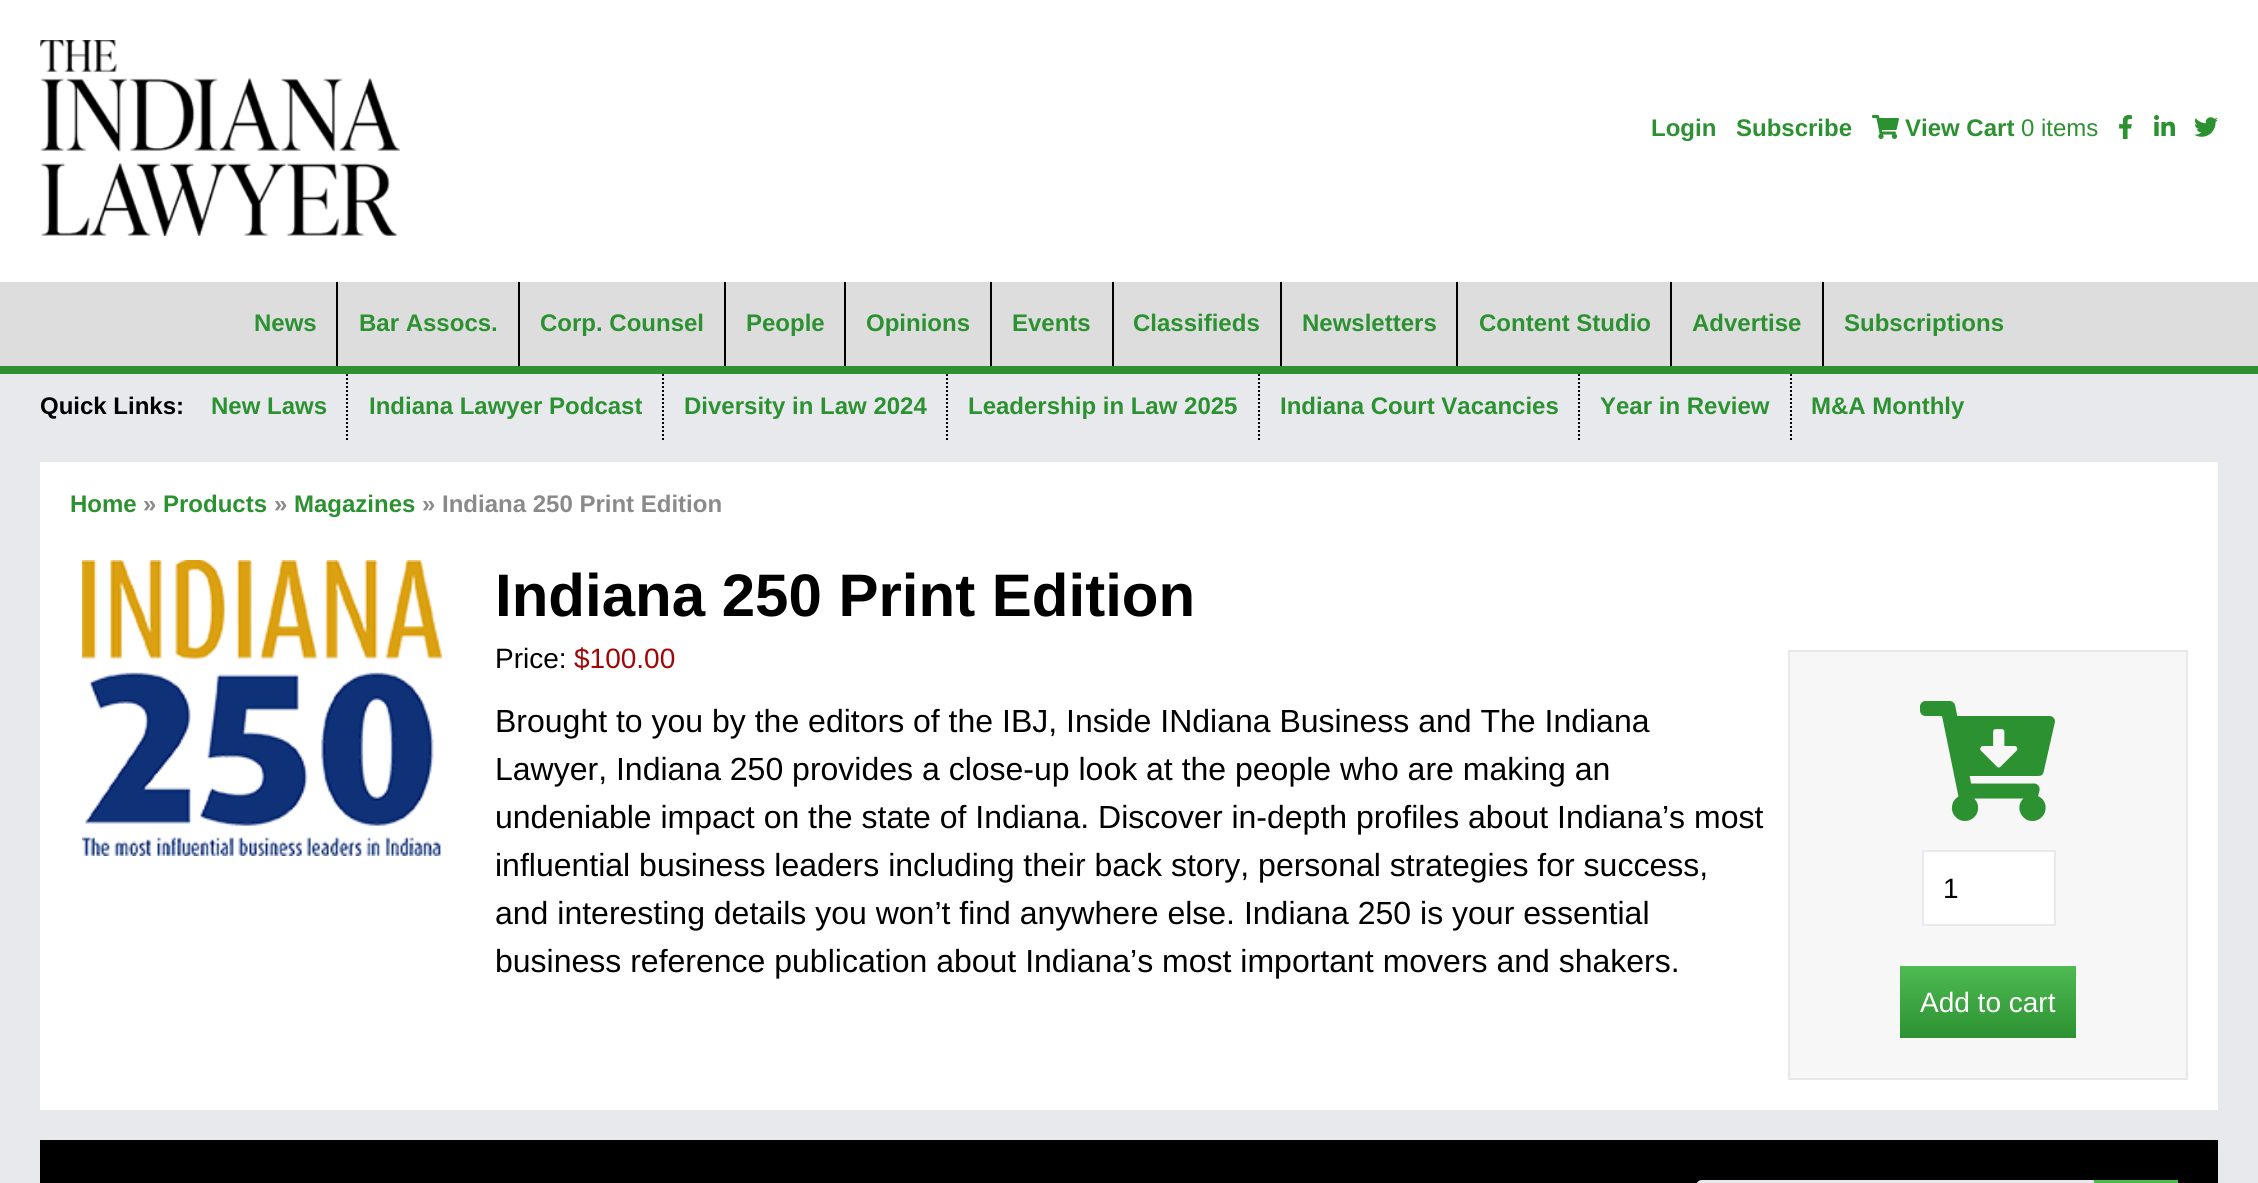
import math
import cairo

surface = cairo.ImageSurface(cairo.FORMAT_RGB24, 2258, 1183)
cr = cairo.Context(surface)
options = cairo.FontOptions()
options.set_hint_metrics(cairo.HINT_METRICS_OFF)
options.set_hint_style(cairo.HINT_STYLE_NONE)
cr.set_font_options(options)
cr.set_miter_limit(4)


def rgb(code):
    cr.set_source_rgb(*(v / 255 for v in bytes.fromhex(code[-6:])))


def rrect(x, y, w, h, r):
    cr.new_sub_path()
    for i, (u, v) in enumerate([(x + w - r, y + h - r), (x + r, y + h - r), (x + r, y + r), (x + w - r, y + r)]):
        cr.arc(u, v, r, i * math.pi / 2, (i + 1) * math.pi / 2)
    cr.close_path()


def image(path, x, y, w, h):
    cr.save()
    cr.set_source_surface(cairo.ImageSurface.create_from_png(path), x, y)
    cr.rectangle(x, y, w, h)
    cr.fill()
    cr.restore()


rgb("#e8e9ed")
cr.paint()
rgb("#ffffff")
cr.rectangle(0, 0, 2258, 282)
cr.fill()
image("img/1.png", 40, 40, 360, 196)
image("img/2.png", 1872, 115, 27, 24)
image("img/3.png", 2119, 115, 13, 24)
image("img/4.png", 2154, 115, 21, 21)
image("img/5.png", 2194, 117, 24, 20)
for x, y, w, h, color in [
    (0, 282, 2258, 84, "#dddddd"),
    (0, 366, 2258, 8, "#2c9131"),
    (336, 282, 2, 84, "#000000"),
    (518, 282, 2, 84, "#000000"),
    (724, 282, 2, 84, "#000000"),
    (844, 282, 2, 84, "#000000"),
    (990, 282, 2, 84, "#000000"),
    (1112, 282, 2, 84, "#000000"),
    (1280, 282, 2, 84, "#000000"),
    (1456, 282, 2, 84, "#000000"),
    (1670, 282, 2, 84, "#000000"),
    (1822, 282, 2, 84, "#000000"),
]:
    rgb(color)
    cr.rectangle(x, y, w, h)
    cr.fill()
cr.new_path()
cr.move_to(347, 374)
cr.line_to(347, 442)
cr.set_dash([2, 2])
cr.stroke()
cr.new_path()
cr.move_to(663, 374)
cr.line_to(663, 442)
cr.stroke()
cr.new_path()
cr.move_to(947, 374)
cr.line_to(947, 442)
cr.stroke()
cr.new_path()
cr.move_to(1259, 374)
cr.line_to(1259, 442)
cr.stroke()
cr.new_path()
cr.move_to(1579, 374)
cr.line_to(1579, 442)
cr.stroke()
cr.new_path()
cr.move_to(1791, 374)
cr.line_to(1791, 442)
cr.stroke()
rgb("#ffffff")
cr.rectangle(40, 462, 2178, 648)
cr.fill()
image("img/6.png", 82, 560, 360, 296)
rgb("#f7f7f7")
cr.rectangle(1789, 651, 398, 428)
cr.fill_preserve()
rgb("#e8e8e8")
cr.set_dash([])
cr.stroke()
image("img/7.png", 1920, 701, 135, 120)
rgb("#ffffff")
cr.rectangle(1923, 851, 132, 74)
cr.fill_preserve()
rgb("#e8e9ed")
cr.stroke()
gradient = cairo.LinearGradient(1988, 966, 1988, 1038)
gradient.add_color_stop_rgba(0, 0.306, 0.733, 0.325, 1)
gradient.add_color_stop_rgba(1, 0.173, 0.569, 0.192, 1)
cr.set_source(gradient)
cr.rectangle(1900, 966, 176, 72)
cr.fill()
rgb("#000000")
cr.rectangle(40, 1140, 2178, 43)
cr.fill()
rgb("#e8e9ed")
rrect(1696, 1180, 402, 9, 6)
cr.fill()
gradient = cairo.LinearGradient(2136, 1180, 2136, 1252)
gradient.add_color_stop_rgba(0, 0.306, 0.733, 0.325, 1)
gradient.add_color_stop_rgba(1, 0.173, 0.569, 0.192, 1)
cr.set_source(gradient)
cr.rectangle(2094, 1180, 84, 3)
cr.fill()
cr.select_font_face("Liberation Sans", cairo.FONT_SLANT_NORMAL, cairo.FONT_WEIGHT_BOLD)
cr.set_font_size(24)
rgb("#2c9131")
for x, y, s in [
    (1651, 136, "Login"),
    (1736, 136, "Subscribe"),
    (1905, 136, "View Cart"),
]:
    cr.move_to(x, y)
    cr.show_text(s)
cr.select_font_face("Liberation Sans")
cr.move_to(2021, 136)
cr.show_text("0 items")
cr.select_font_face("Liberation Sans", cairo.FONT_SLANT_NORMAL, cairo.FONT_WEIGHT_BOLD)
for x, y, s in [
    (254, 331, "News"),
    (359, 331, "Bar Assocs."),
    (540, 331, "Corp. Counsel"),
    (746, 331, "People"),
    (866, 331, "Opinions"),
    (1012, 331, "Events"),
    (1133, 331, "Classifieds"),
    (1302, 331, "Newsletters"),
    (1479, 331, "Content Studio"),
    (1692, 331, "Advertise"),
    (1844, 331, "Subscriptions"),
]:
    cr.move_to(x, y)
    cr.show_text(s)
rgb("#000000")
cr.move_to(40, 414)
cr.show_text("Quick Links:")
rgb("#2c9131")
for x, y, s in [
    (211, 414, "New Laws"),
    (369, 414, "Indiana Lawyer Podcast"),
    (684, 414, "Diversity in Law 2024"),
    (968, 414, "Leadership in Law 2025"),
    (1280, 414, "Indiana Court Vacancies"),
    (1600, 414, "Year in Review"),
    (1811, 414, "M&A Monthly"),
    (70, 512, "Home"),
]:
    cr.move_to(x, y)
    cr.show_text(s)
rgb("#8a8a8b")
cr.move_to(143, 512)
cr.show_text("»")
rgb("#2c9131")
cr.move_to(163, 512)
cr.show_text("Products")
rgb("#8a8a8b")
cr.move_to(274, 512)
cr.show_text("»")
rgb("#2c9131")
cr.move_to(294, 512)
cr.show_text("Magazines")
rgb("#8a8a8b")
cr.move_to(422, 512)
cr.show_text("» Indiana 250 Print Edition")
cr.set_font_size(60)
rgb("#000000")
cr.move_to(495, 616)
cr.show_text("Indiana 250 Print Edition")
cr.select_font_face("Liberation Sans")
cr.set_font_size(28)
cr.move_to(495, 668)
cr.show_text("Price:")
rgb("#a00606")
cr.move_to(574, 668)
cr.show_text("$100.00")
cr.set_font_size(32)
rgb("#000000")
for x, y, s in [
    (495, 732, "Brought to you by the editors of the IBJ, Inside INdiana Business and The Indiana"),
    (495, 780, "Lawyer, Indiana 250 provides a close-up look at the people who are making an"),
    (495, 828, "undeniable impact on the state of Indiana. Discover in-depth profiles about Indiana’s most"),
    (495, 876, "influential business leaders including their back story, personal strategies for success,"),
    (495, 924, "and interesting details you won’t find anywhere else. Indiana 250 is your essential"),
    (495, 972, "business reference publication about Indiana’s most important movers and shakers."),
]:
    cr.move_to(x, y)
    cr.show_text(s)
cr.set_font_size(28)
cr.move_to(1943, 898)
cr.show_text("1")
rgb("#ffffff")
cr.move_to(1920, 1012)
cr.show_text("Add to cart")
surface.write_to_png("page.png")
